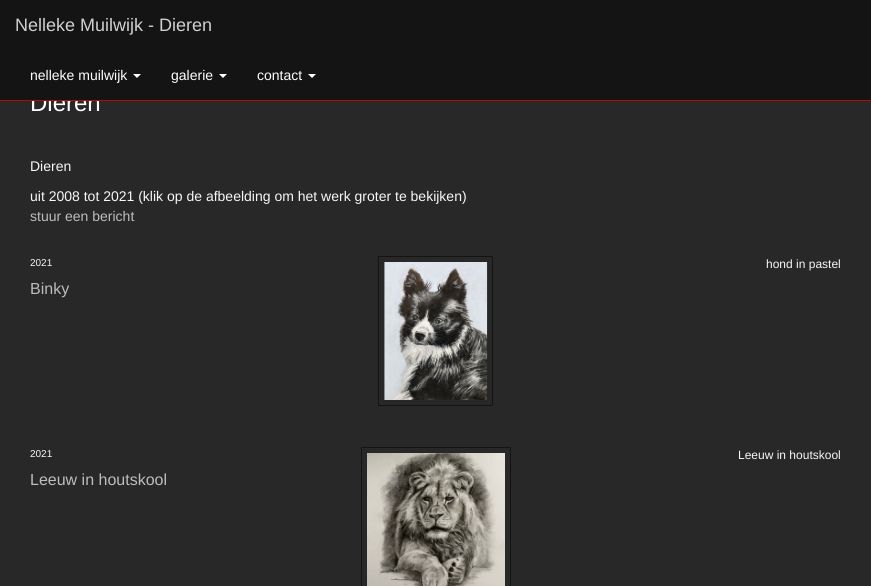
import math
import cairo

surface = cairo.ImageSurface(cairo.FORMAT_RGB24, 871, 586)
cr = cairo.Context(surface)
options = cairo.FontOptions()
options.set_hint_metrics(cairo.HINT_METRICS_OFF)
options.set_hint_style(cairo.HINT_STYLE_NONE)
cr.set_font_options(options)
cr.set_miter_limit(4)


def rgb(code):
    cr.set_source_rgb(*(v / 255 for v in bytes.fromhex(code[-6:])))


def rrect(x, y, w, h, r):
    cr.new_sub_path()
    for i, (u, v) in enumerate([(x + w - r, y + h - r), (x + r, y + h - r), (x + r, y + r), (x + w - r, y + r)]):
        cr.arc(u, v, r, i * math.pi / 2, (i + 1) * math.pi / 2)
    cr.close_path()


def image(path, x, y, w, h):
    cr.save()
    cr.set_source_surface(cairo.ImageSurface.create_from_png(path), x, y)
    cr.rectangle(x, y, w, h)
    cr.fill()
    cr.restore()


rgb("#282828")
cr.paint()
rrect(378.5, 256.5, 114, 149, 0.5)
rgb("#141414")
cr.set_line_width(1)
cr.stroke()
image("img/1.png", 384, 262, 104, 138)
rrect(361.5, 447.5, 149, 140, 0.5)
cr.stroke()
image("img/2.png", 367, 453, 138, 133)
cr.select_font_face("Liberation Sans")
cr.set_font_size(24)
rgb("#ffffff")
cr.move_to(30, 111)
cr.show_text("Dieren")
rgb("#141414")
cr.rectangle(0, 0, 871, 100)
cr.fill()
rgb("#ffffff")
cr.new_path()
cr.move_to(308, 74)
cr.line_to(316, 74)
cr.line_to(312, 78)
cr.close_path()
cr.fill()
cr.set_font_size(14)
cr.move_to(257, 80)
cr.show_text("contact")
cr.new_path()
cr.move_to(219, 74)
cr.line_to(227, 74)
cr.line_to(223, 78)
cr.close_path()
cr.fill()
cr.move_to(171, 80)
cr.show_text("galerie")
cr.new_path()
cr.move_to(133, 74)
cr.line_to(141, 74)
cr.line_to(137, 78)
cr.close_path()
cr.fill()
cr.move_to(30, 80)
cr.show_text("nelleke muilwijk")
cr.set_font_size(18)
rgb("#d0d0d0")
cr.move_to(15, 31)
cr.show_text("Nelleke Muilwijk - Dieren")
rgb("#b10b0b")
cr.rectangle(0, 100, 871, 1)
cr.fill()
cr.set_font_size(14)
rgb("#f7f7f7")
cr.move_to(30, 171)
cr.show_text("Dieren")
cr.move_to(30, 201)
cr.show_text("uit 2008 tot 2021 (klik op de afbeelding om het werk groter te bekijken)")
rgb("#bcbdc0")
cr.move_to(30, 221)
cr.show_text("stuur een bericht")
cr.set_font_size(10)
rgb("#f7f7f7")
cr.move_to(30, 266)
cr.show_text("2021")
cr.set_font_size(12)
cr.move_to(766, 268)
cr.show_text("hond in pastel")
cr.set_font_size(16)
rgb("#bcbdc0")
cr.move_to(30, 294)
cr.show_text("Binky")
cr.set_font_size(10)
rgb("#f7f7f7")
cr.move_to(30, 457)
cr.show_text("2021")
cr.set_font_size(12)
cr.move_to(738, 459)
cr.show_text("Leeuw in houtskool")
cr.set_font_size(16)
rgb("#bcbdc0")
cr.move_to(30, 485)
cr.show_text("Leeuw in houtskool")
surface.write_to_png("page.png")
